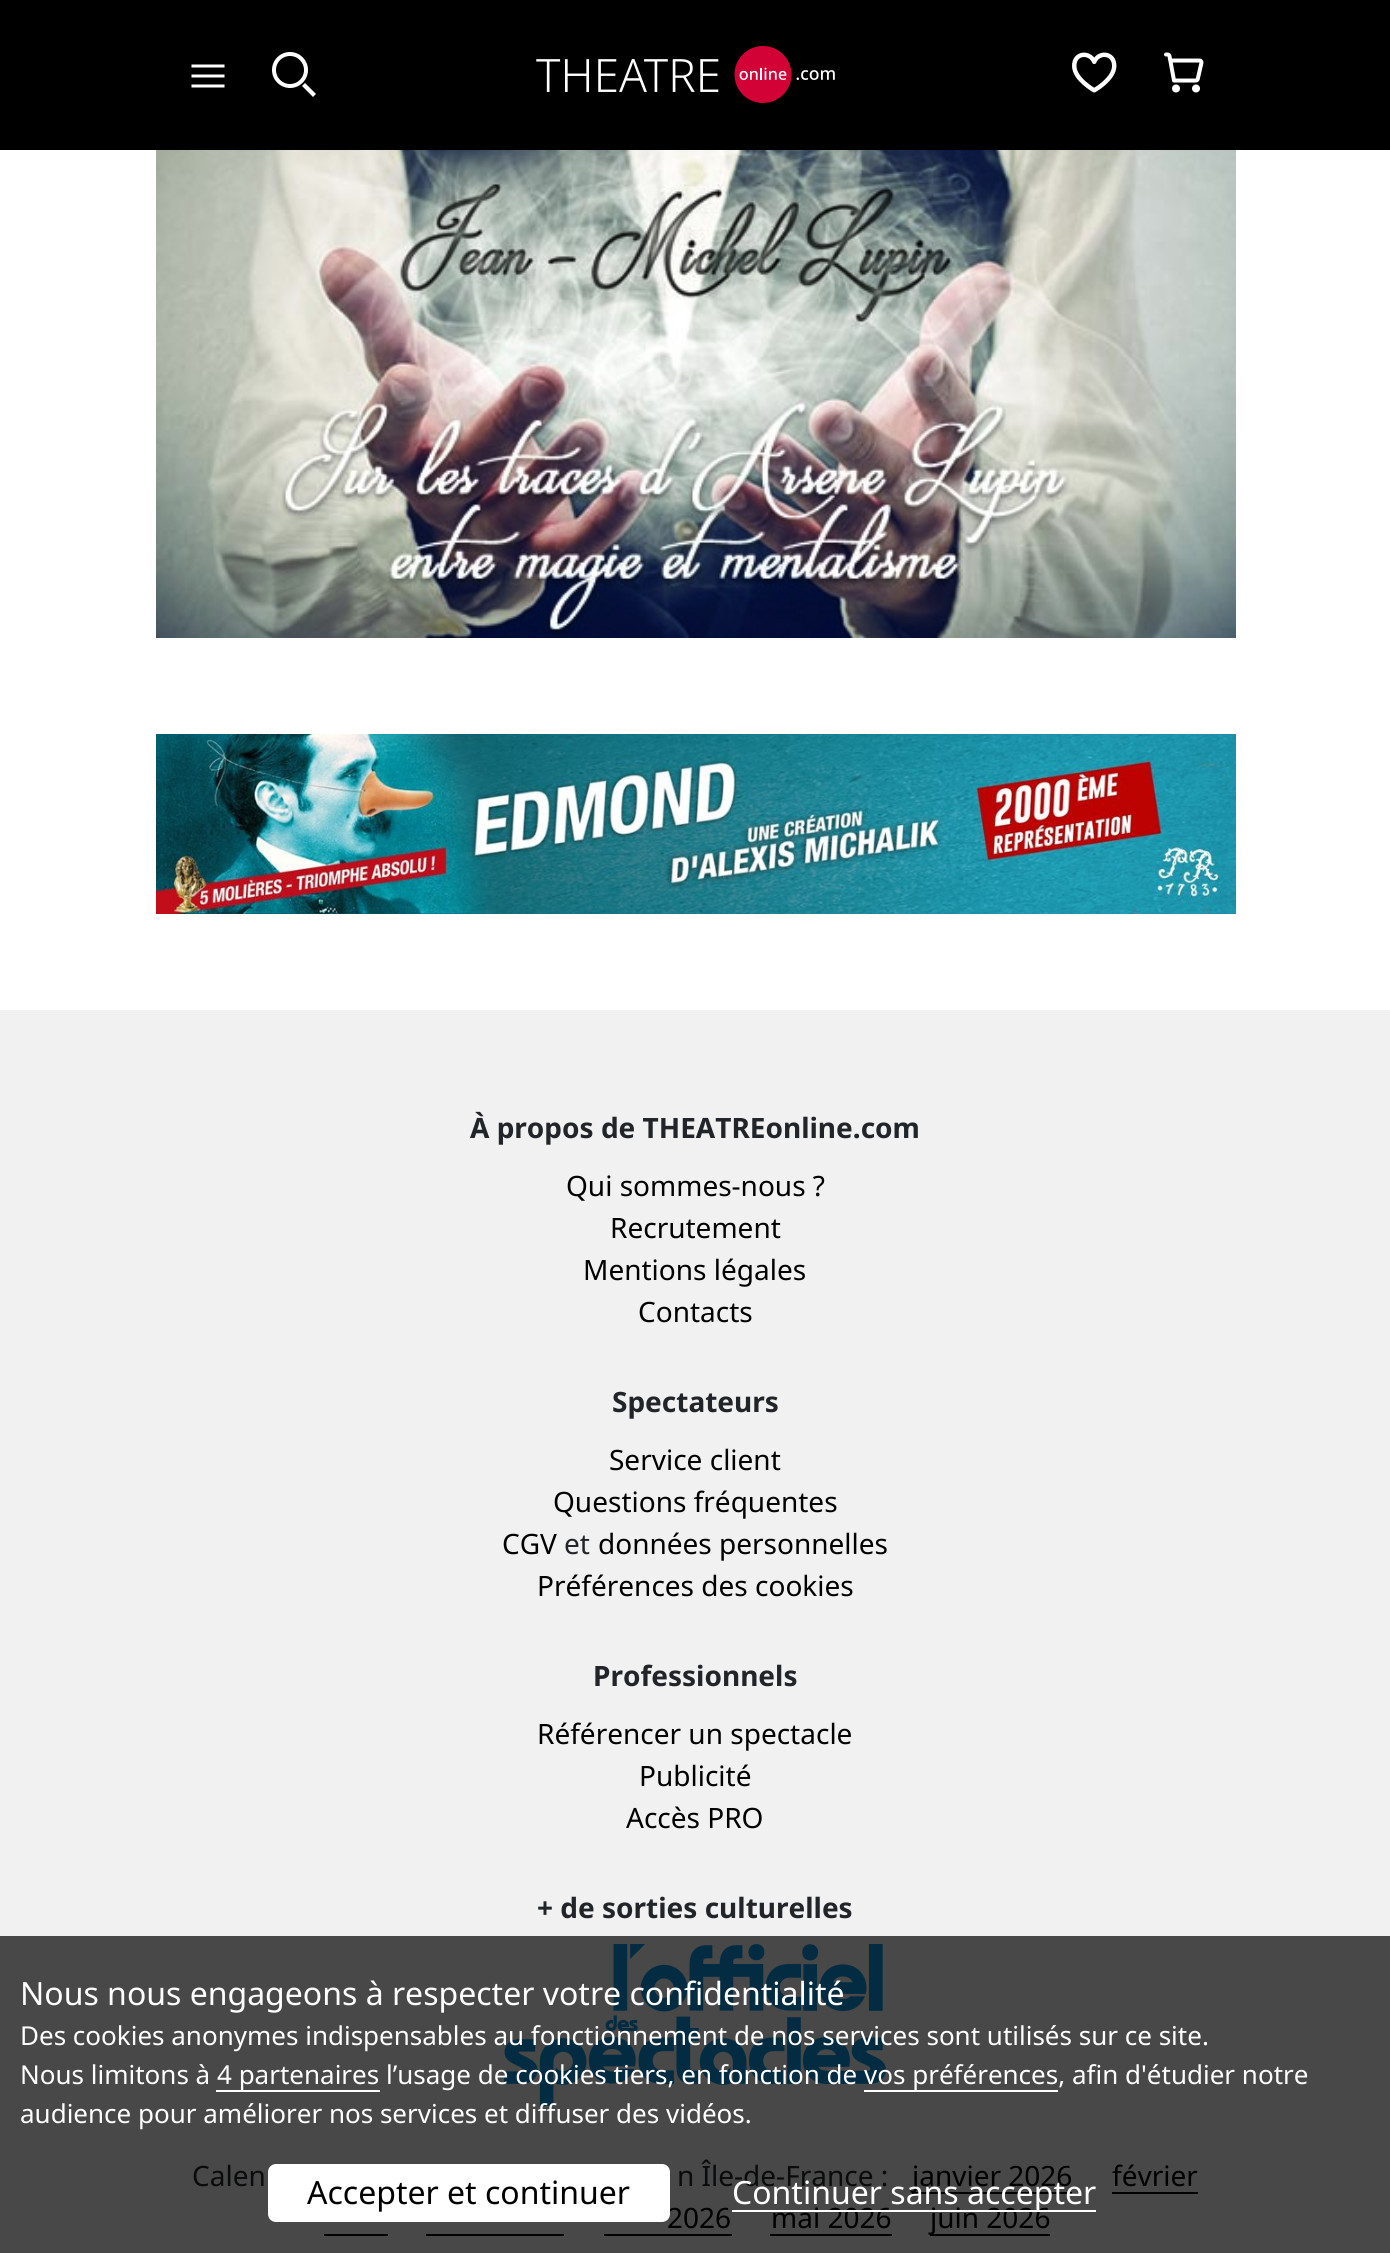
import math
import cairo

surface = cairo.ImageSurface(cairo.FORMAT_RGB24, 1390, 2253)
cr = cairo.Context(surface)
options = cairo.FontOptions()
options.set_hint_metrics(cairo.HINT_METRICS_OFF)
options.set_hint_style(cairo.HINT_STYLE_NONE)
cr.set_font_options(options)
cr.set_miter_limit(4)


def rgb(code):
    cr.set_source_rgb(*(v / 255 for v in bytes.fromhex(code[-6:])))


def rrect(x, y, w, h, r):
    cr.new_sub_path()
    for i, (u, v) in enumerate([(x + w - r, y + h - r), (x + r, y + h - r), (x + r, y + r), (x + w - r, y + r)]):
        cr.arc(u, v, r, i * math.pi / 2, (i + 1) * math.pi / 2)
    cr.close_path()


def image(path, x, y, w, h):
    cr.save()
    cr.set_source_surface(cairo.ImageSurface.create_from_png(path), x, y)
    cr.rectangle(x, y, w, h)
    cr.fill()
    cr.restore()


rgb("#ffffff")
cr.paint()
rgb("#000000")
cr.rectangle(0, 0, 1390, 150)
cr.fill()
rgb("#ffffff")
cr.new_path()
cr.move_to(191.5, 64.5)
cr.line_to(191.5, 67.5)
cr.line_to(224.5, 67.5)
cr.line_to(224.5, 64.5)
cr.close_path()
cr.move_to(191.5, 74.5)
cr.line_to(191.5, 77.5)
cr.line_to(224.5, 77.5)
cr.line_to(224.5, 74.5)
cr.close_path()
cr.move_to(191.5, 84.5)
cr.line_to(191.5, 87.5)
cr.line_to(224.5, 87.5)
cr.line_to(224.5, 84.5)
cr.close_path()
cr.fill()
cr.new_path()
cr.move_to(305, 83)
cr.line_to(316, 94)
cr.line_to(313, 97)
cr.line_to(302, 86)
cr.close_path()
cr.fill()
cr.arc(290, 70, 16, 0, 2 * math.pi)
cr.set_line_width(4)
cr.stroke()
image("img/1.png", 536, 46, 299, 57)
image("img/2.png", 1072, 52, 45, 41)
image("img/3.png", 1164, 52, 40, 41)
image("img/4.png", 156, 150, 1080, 488)
image("img/5.png", 156, 734, 1080, 180)
rgb("#f1f1f1")
cr.rectangle(0, 1010, 1390, 926)
cr.fill()
rgb("#484848")
cr.rectangle(0, 1936, 1390, 317)
cr.fill()
image("img/6.png", 504, 1944, 382, 162)
for x, y, w, h, color in [
    (912, 2192, 160, 2, "#000000"),
    (1112, 2192, 86, 2, "#000000"),
    (324, 2234, 64, 2, "#000000"),
    (426, 2234, 138, 2, "#000000"),
    (604, 2234, 128, 2, "#000000"),
    (770, 2234, 122, 2, "#000000"),
    (930, 2234, 120, 2, "#000000"),
    (216, 2090, 164, 2, "#ffffff"),
    (864, 2090, 194, 2, "#ffffff"),
]:
    rgb(color)
    cr.rectangle(x, y, w, h)
    cr.fill()
cr.select_font_face("Noto Sans", cairo.FONT_SLANT_NORMAL, cairo.FONT_WEIGHT_BOLD)
cr.set_font_size(28)
rgb("#212529")
cr.move_to(470, 1138)
cr.show_text("À propos de THEATREonline.com")
cr.select_font_face("Noto Sans")
rgb("#000000")
for x, y, s in [
    (566, 1196, "Qui sommes-nous ?"),
    (610, 1238, "Recrutement"),
    (583, 1280, "Mentions légales"),
    (638, 1322, "Contacts"),
]:
    cr.move_to(x, y)
    cr.show_text(s)
cr.select_font_face("Noto Sans", cairo.FONT_SLANT_NORMAL, cairo.FONT_WEIGHT_BOLD)
rgb("#212529")
cr.move_to(612, 1412)
cr.show_text("Spectateurs")
cr.select_font_face("Noto Sans")
rgb("#000000")
for x, y, s in [
    (609, 1470, "Service client"),
    (553, 1512, "Questions fréquentes"),
    (502, 1554, "CGV"),
]:
    cr.move_to(x, y)
    cr.show_text(s)
rgb("#212529")
cr.move_to(564, 1554)
cr.show_text("et")
rgb("#000000")
cr.move_to(598, 1554)
cr.show_text("données personnelles")
cr.move_to(537, 1596)
cr.show_text("Préférences des cookies")
cr.select_font_face("Noto Sans", cairo.FONT_SLANT_NORMAL, cairo.FONT_WEIGHT_BOLD)
rgb("#212529")
cr.move_to(593, 1686)
cr.show_text("Professionnels")
cr.select_font_face("Noto Sans")
rgb("#000000")
for x, y, s in [
    (537, 1744, "Référencer un spectacle"),
    (639, 1786, "Publicité"),
    (626, 1828, "Accès PRO"),
]:
    cr.move_to(x, y)
    cr.show_text(s)
cr.select_font_face("Noto Sans", cairo.FONT_SLANT_NORMAL, cairo.FONT_WEIGHT_BOLD)
rgb("#212529")
cr.move_to(537, 1918)
cr.show_text("+ de sorties culturelles")
cr.select_font_face("Noto Sans")
rgb("#0a0b0c")
cr.move_to(192, 2186)
cr.show_text("Calen")
cr.move_to(677, 2186)
cr.show_text("n Île-de-France :")
rgb("#000000")
for x, y, s in [
    (912, 2186, "janvier 2026"),
    (1112, 2186, "février"),
    (667, 2228, "2026"),
    (771, 2228, "mai 2026"),
    (930, 2228, "juin 2026"),
]:
    cr.move_to(x, y)
    cr.show_text(s)
cr.set_font_size(32)
rgb("#ffffff")
cr.move_to(20, 2005)
cr.show_text("Nous nous engageons à respecter votre confidentialité")
cr.set_font_size(26)
for x, y, s in [
    (20, 2045, "Des cookies anonymes indispensables au fonctionnement de nos services sont utilisés sur ce site."),
    (20, 2084, "Nous limitons à"),
    (217, 2084, "4 partenaires l’usage de cookies tiers, en fonction de"),
    (864, 2084, "vos préférences, afin d'étudier notre"),
    (20, 2123, "audience pour améliorer nos services et diffuser des vidéos."),
]:
    cr.move_to(x, y)
    cr.show_text(s)
rrect(268, 2164, 402, 58, 8)
cr.fill()
cr.set_font_size(32)
rgb("#000000")
cr.move_to(307, 2204)
cr.show_text("Accepter et continuer")
rgb("#ffffff")
cr.rectangle(732, 2210, 364, 2)
cr.fill()
cr.move_to(732, 2204)
cr.show_text("Continuer sans accepter")
surface.write_to_png("page.png")
